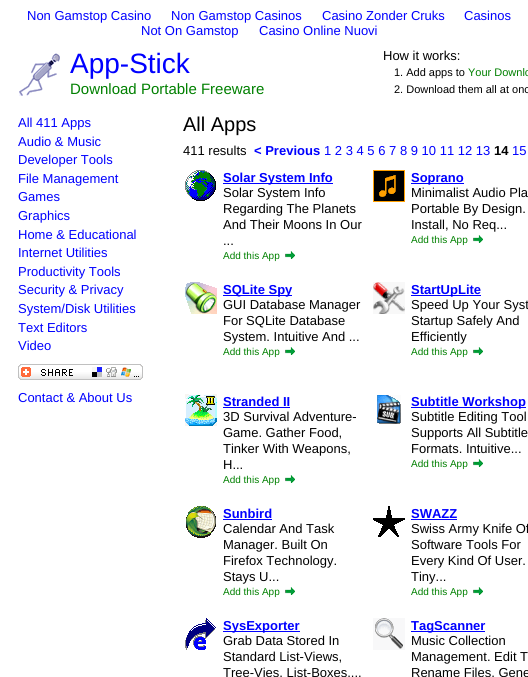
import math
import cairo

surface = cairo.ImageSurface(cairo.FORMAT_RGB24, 528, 677)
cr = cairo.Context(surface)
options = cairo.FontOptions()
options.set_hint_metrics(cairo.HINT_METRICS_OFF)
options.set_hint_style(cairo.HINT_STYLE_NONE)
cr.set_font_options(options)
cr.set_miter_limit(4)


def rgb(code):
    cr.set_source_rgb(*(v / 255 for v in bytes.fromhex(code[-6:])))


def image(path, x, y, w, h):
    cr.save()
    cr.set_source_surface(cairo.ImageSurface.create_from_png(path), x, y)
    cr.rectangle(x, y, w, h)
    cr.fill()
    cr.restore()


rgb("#ffffff")
cr.paint()
image("img/1.png", 19, 53, 41, 43)
image("img/2.png", 18, 364, 125, 16)
image("img/3.png", 185, 170, 31, 31)
rgb("#0000ff")
cr.rectangle(223, 183, 110, 1)
cr.fill()
image("img/4.png", 285, 251, 10, 8)
image("img/5.png", 373, 170, 32, 32)
cr.rectangle(411, 183, 53, 1)
cr.fill()
image("img/4.png", 473, 235, 10, 8)
image("img/6.png", 185, 282, 32, 32)
cr.rectangle(223, 295, 69, 1)
cr.fill()
image("img/4.png", 285, 347, 10, 8)
image("img/7.png", 373, 282, 32, 32)
cr.rectangle(411, 295, 70, 1)
cr.fill()
image("img/4.png", 473, 347, 10, 8)
image("img/8.png", 185, 394, 32, 32)
cr.rectangle(223, 407, 67, 1)
cr.fill()
image("img/4.png", 285, 475, 10, 8)
image("img/9.png", 377, 395, 24, 29)
cr.rectangle(411, 407, 115, 1)
cr.fill()
image("img/4.png", 473, 459, 10, 8)
image("img/10.png", 186, 506, 30, 32)
cr.rectangle(223, 519, 49, 1)
cr.fill()
image("img/4.png", 285, 587, 10, 8)
image("img/11.png", 373, 506, 32, 31)
cr.rectangle(411, 519, 46, 1)
cr.fill()
image("img/4.png", 473, 587, 10, 8)
image("img/12.png", 185, 618, 31, 32)
cr.rectangle(223, 631, 77, 1)
cr.fill()
image("img/13.png", 373, 618, 32, 32)
cr.rectangle(411, 631, 74, 1)
cr.fill()
cr.select_font_face("Liberation Sans")
cr.set_font_size(13)
for x, y, s in [
    (27, 20, "Non Gamstop Casino"),
    (171, 20, "Non Gamstop Casinos"),
    (322, 20, "Casino Zonder Cruks"),
    (464, 20, "Casinos"),
    (141, 35, "Not On Gamstop"),
    (259, 35, "Casino Online Nuovi"),
]:
    cr.move_to(x, y)
    cr.show_text(s)
cr.set_font_size(28)
cr.move_to(70, 73)
cr.show_text("App-Stick")
cr.set_font_size(15)
rgb("#008000")
cr.move_to(70, 94)
cr.show_text("Download Portable Freeware")
cr.set_font_size(13)
rgb("#000000")
cr.move_to(383, 60)
cr.show_text("How it works:")
cr.set_font_size(11)
cr.move_to(394, 76)
cr.show_text("1. Add apps to")
rgb("#008000")
cr.move_to(468, 76)
cr.show_text("Your Downlo")
rgb("#000000")
cr.move_to(394, 93)
cr.show_text("2. Download them all at onc")
cr.set_font_size(13)
rgb("#0000ff")
for x, y, s in [
    (18, 127, "All 411 Apps"),
    (18, 146, "Audio & Music"),
    (18, 164, "Developer Tools"),
    (18, 183, "File Management"),
    (18, 201, "Games"),
    (18, 220, "Graphics"),
    (18, 239, "Home & Educational"),
    (18, 257, "Internet Utilities"),
    (18, 276, "Productivity Tools"),
    (18, 294, "Security & Privacy"),
    (18, 313, "System/Disk Utilities"),
    (18, 332, "Text Editors"),
    (18, 350, "Video"),
    (18, 402, "Contact & About Us"),
]:
    cr.move_to(x, y)
    cr.show_text(s)
cr.set_font_size(20)
rgb("#000000")
cr.move_to(183, 131)
cr.show_text("All Apps")
cr.set_font_size(13)
cr.move_to(183, 155)
cr.show_text("411 results")
cr.select_font_face("Liberation Sans", cairo.FONT_SLANT_NORMAL, cairo.FONT_WEIGHT_BOLD)
rgb("#0000ff")
cr.move_to(254, 155)
cr.show_text("< Previous")
cr.select_font_face("Liberation Sans")
cr.move_to(324, 155)
cr.show_text("1 2 3 4 5 6 7 8 9 10 11 12 13")
cr.select_font_face("Liberation Sans", cairo.FONT_SLANT_NORMAL, cairo.FONT_WEIGHT_BOLD)
rgb("#000000")
cr.move_to(494, 155)
cr.show_text("14")
cr.select_font_face("Liberation Sans")
rgb("#0000ff")
cr.move_to(512, 155)
cr.show_text("15")
cr.select_font_face("Liberation Sans", cairo.FONT_SLANT_NORMAL, cairo.FONT_WEIGHT_BOLD)
cr.move_to(223, 182)
cr.show_text("Solar System Info")
cr.select_font_face("Liberation Sans")
rgb("#000000")
for x, y, s in [
    (223, 197, "Solar System Info"),
    (223, 213, "Regarding The Planets"),
    (223, 229, "And Their Moons In Our"),
    (223, 245, "..."),
]:
    cr.move_to(x, y)
    cr.show_text(s)
cr.set_font_size(10)
rgb("#008000")
cr.move_to(223, 259)
cr.show_text("Add this App")
cr.select_font_face("Liberation Sans", cairo.FONT_SLANT_NORMAL, cairo.FONT_WEIGHT_BOLD)
cr.set_font_size(13)
rgb("#0000ff")
cr.move_to(411, 182)
cr.show_text("Soprano")
cr.select_font_face("Liberation Sans")
rgb("#000000")
for x, y, s in [
    (411, 197, "Minimalist Audio Pla"),
    (411, 213, "Portable By Design."),
    (411, 229, "Install, No Req..."),
]:
    cr.move_to(x, y)
    cr.show_text(s)
cr.set_font_size(10)
rgb("#008000")
cr.move_to(411, 243)
cr.show_text("Add this App")
cr.select_font_face("Liberation Sans", cairo.FONT_SLANT_NORMAL, cairo.FONT_WEIGHT_BOLD)
cr.set_font_size(13)
rgb("#0000ff")
cr.move_to(223, 294)
cr.show_text("SQLite Spy")
cr.select_font_face("Liberation Sans")
rgb("#000000")
for x, y, s in [
    (223, 309, "GUI Database Manager"),
    (223, 325, "For SQLite Database"),
    (223, 341, "System. Intuitive And ..."),
]:
    cr.move_to(x, y)
    cr.show_text(s)
cr.set_font_size(10)
rgb("#008000")
cr.move_to(223, 355)
cr.show_text("Add this App")
cr.select_font_face("Liberation Sans", cairo.FONT_SLANT_NORMAL, cairo.FONT_WEIGHT_BOLD)
cr.set_font_size(13)
rgb("#0000ff")
cr.move_to(411, 294)
cr.show_text("StartUpLite")
cr.select_font_face("Liberation Sans")
rgb("#000000")
for x, y, s in [
    (411, 309, "Speed Up Your Syst"),
    (411, 325, "Startup Safely And"),
    (411, 341, "Efficiently"),
]:
    cr.move_to(x, y)
    cr.show_text(s)
cr.set_font_size(10)
rgb("#008000")
cr.move_to(411, 355)
cr.show_text("Add this App")
cr.select_font_face("Liberation Sans", cairo.FONT_SLANT_NORMAL, cairo.FONT_WEIGHT_BOLD)
cr.set_font_size(13)
rgb("#0000ff")
cr.move_to(223, 406)
cr.show_text("Stranded II")
cr.select_font_face("Liberation Sans")
rgb("#000000")
for x, y, s in [
    (223, 421, "3D Survival Adventure-"),
    (223, 437, "Game. Gather Food,"),
    (223, 453, "Tinker With Weapons,"),
    (223, 469, "H..."),
]:
    cr.move_to(x, y)
    cr.show_text(s)
cr.set_font_size(10)
rgb("#008000")
cr.move_to(223, 483)
cr.show_text("Add this App")
cr.select_font_face("Liberation Sans", cairo.FONT_SLANT_NORMAL, cairo.FONT_WEIGHT_BOLD)
cr.set_font_size(13)
rgb("#0000ff")
cr.move_to(411, 406)
cr.show_text("Subtitle Workshop")
cr.select_font_face("Liberation Sans")
rgb("#000000")
for x, y, s in [
    (411, 421, "Subtitle Editing Tool"),
    (411, 437, "Supports All Subtitle"),
    (411, 453, "Formats. Intuitive..."),
]:
    cr.move_to(x, y)
    cr.show_text(s)
cr.set_font_size(10)
rgb("#008000")
cr.move_to(411, 467)
cr.show_text("Add this App")
cr.select_font_face("Liberation Sans", cairo.FONT_SLANT_NORMAL, cairo.FONT_WEIGHT_BOLD)
cr.set_font_size(13)
rgb("#0000ff")
cr.move_to(223, 518)
cr.show_text("Sunbird")
cr.select_font_face("Liberation Sans")
rgb("#000000")
for x, y, s in [
    (223, 533, "Calendar And Task"),
    (223, 549, "Manager. Built On"),
    (223, 565, "Firefox Technology."),
    (223, 581, "Stays U..."),
]:
    cr.move_to(x, y)
    cr.show_text(s)
cr.set_font_size(10)
rgb("#008000")
cr.move_to(223, 595)
cr.show_text("Add this App")
cr.select_font_face("Liberation Sans", cairo.FONT_SLANT_NORMAL, cairo.FONT_WEIGHT_BOLD)
cr.set_font_size(13)
rgb("#0000ff")
cr.move_to(411, 518)
cr.show_text("SWAZZ")
cr.select_font_face("Liberation Sans")
rgb("#000000")
for x, y, s in [
    (411, 533, "Swiss Army Knife Of"),
    (411, 549, "Software Tools For"),
    (411, 565, "Every Kind Of User."),
    (411, 581, "Tiny..."),
]:
    cr.move_to(x, y)
    cr.show_text(s)
cr.set_font_size(10)
rgb("#008000")
cr.move_to(411, 595)
cr.show_text("Add this App")
cr.select_font_face("Liberation Sans", cairo.FONT_SLANT_NORMAL, cairo.FONT_WEIGHT_BOLD)
cr.set_font_size(13)
rgb("#0000ff")
cr.move_to(223, 630)
cr.show_text("SysExporter")
cr.select_font_face("Liberation Sans")
rgb("#000000")
for x, y, s in [
    (223, 645, "Grab Data Stored In"),
    (223, 661, "Standard List-Views,"),
    (223, 677, "Tree-Vies, List-Boxes,..."),
]:
    cr.move_to(x, y)
    cr.show_text(s)
cr.select_font_face("Liberation Sans", cairo.FONT_SLANT_NORMAL, cairo.FONT_WEIGHT_BOLD)
rgb("#0000ff")
cr.move_to(411, 630)
cr.show_text("TagScanner")
cr.select_font_face("Liberation Sans")
rgb("#000000")
for x, y, s in [
    (411, 645, "Music Collection"),
    (411, 661, "Management. Edit T"),
    (411, 677, "Rename Files, Gene"),
]:
    cr.move_to(x, y)
    cr.show_text(s)
surface.write_to_png("page.png")
